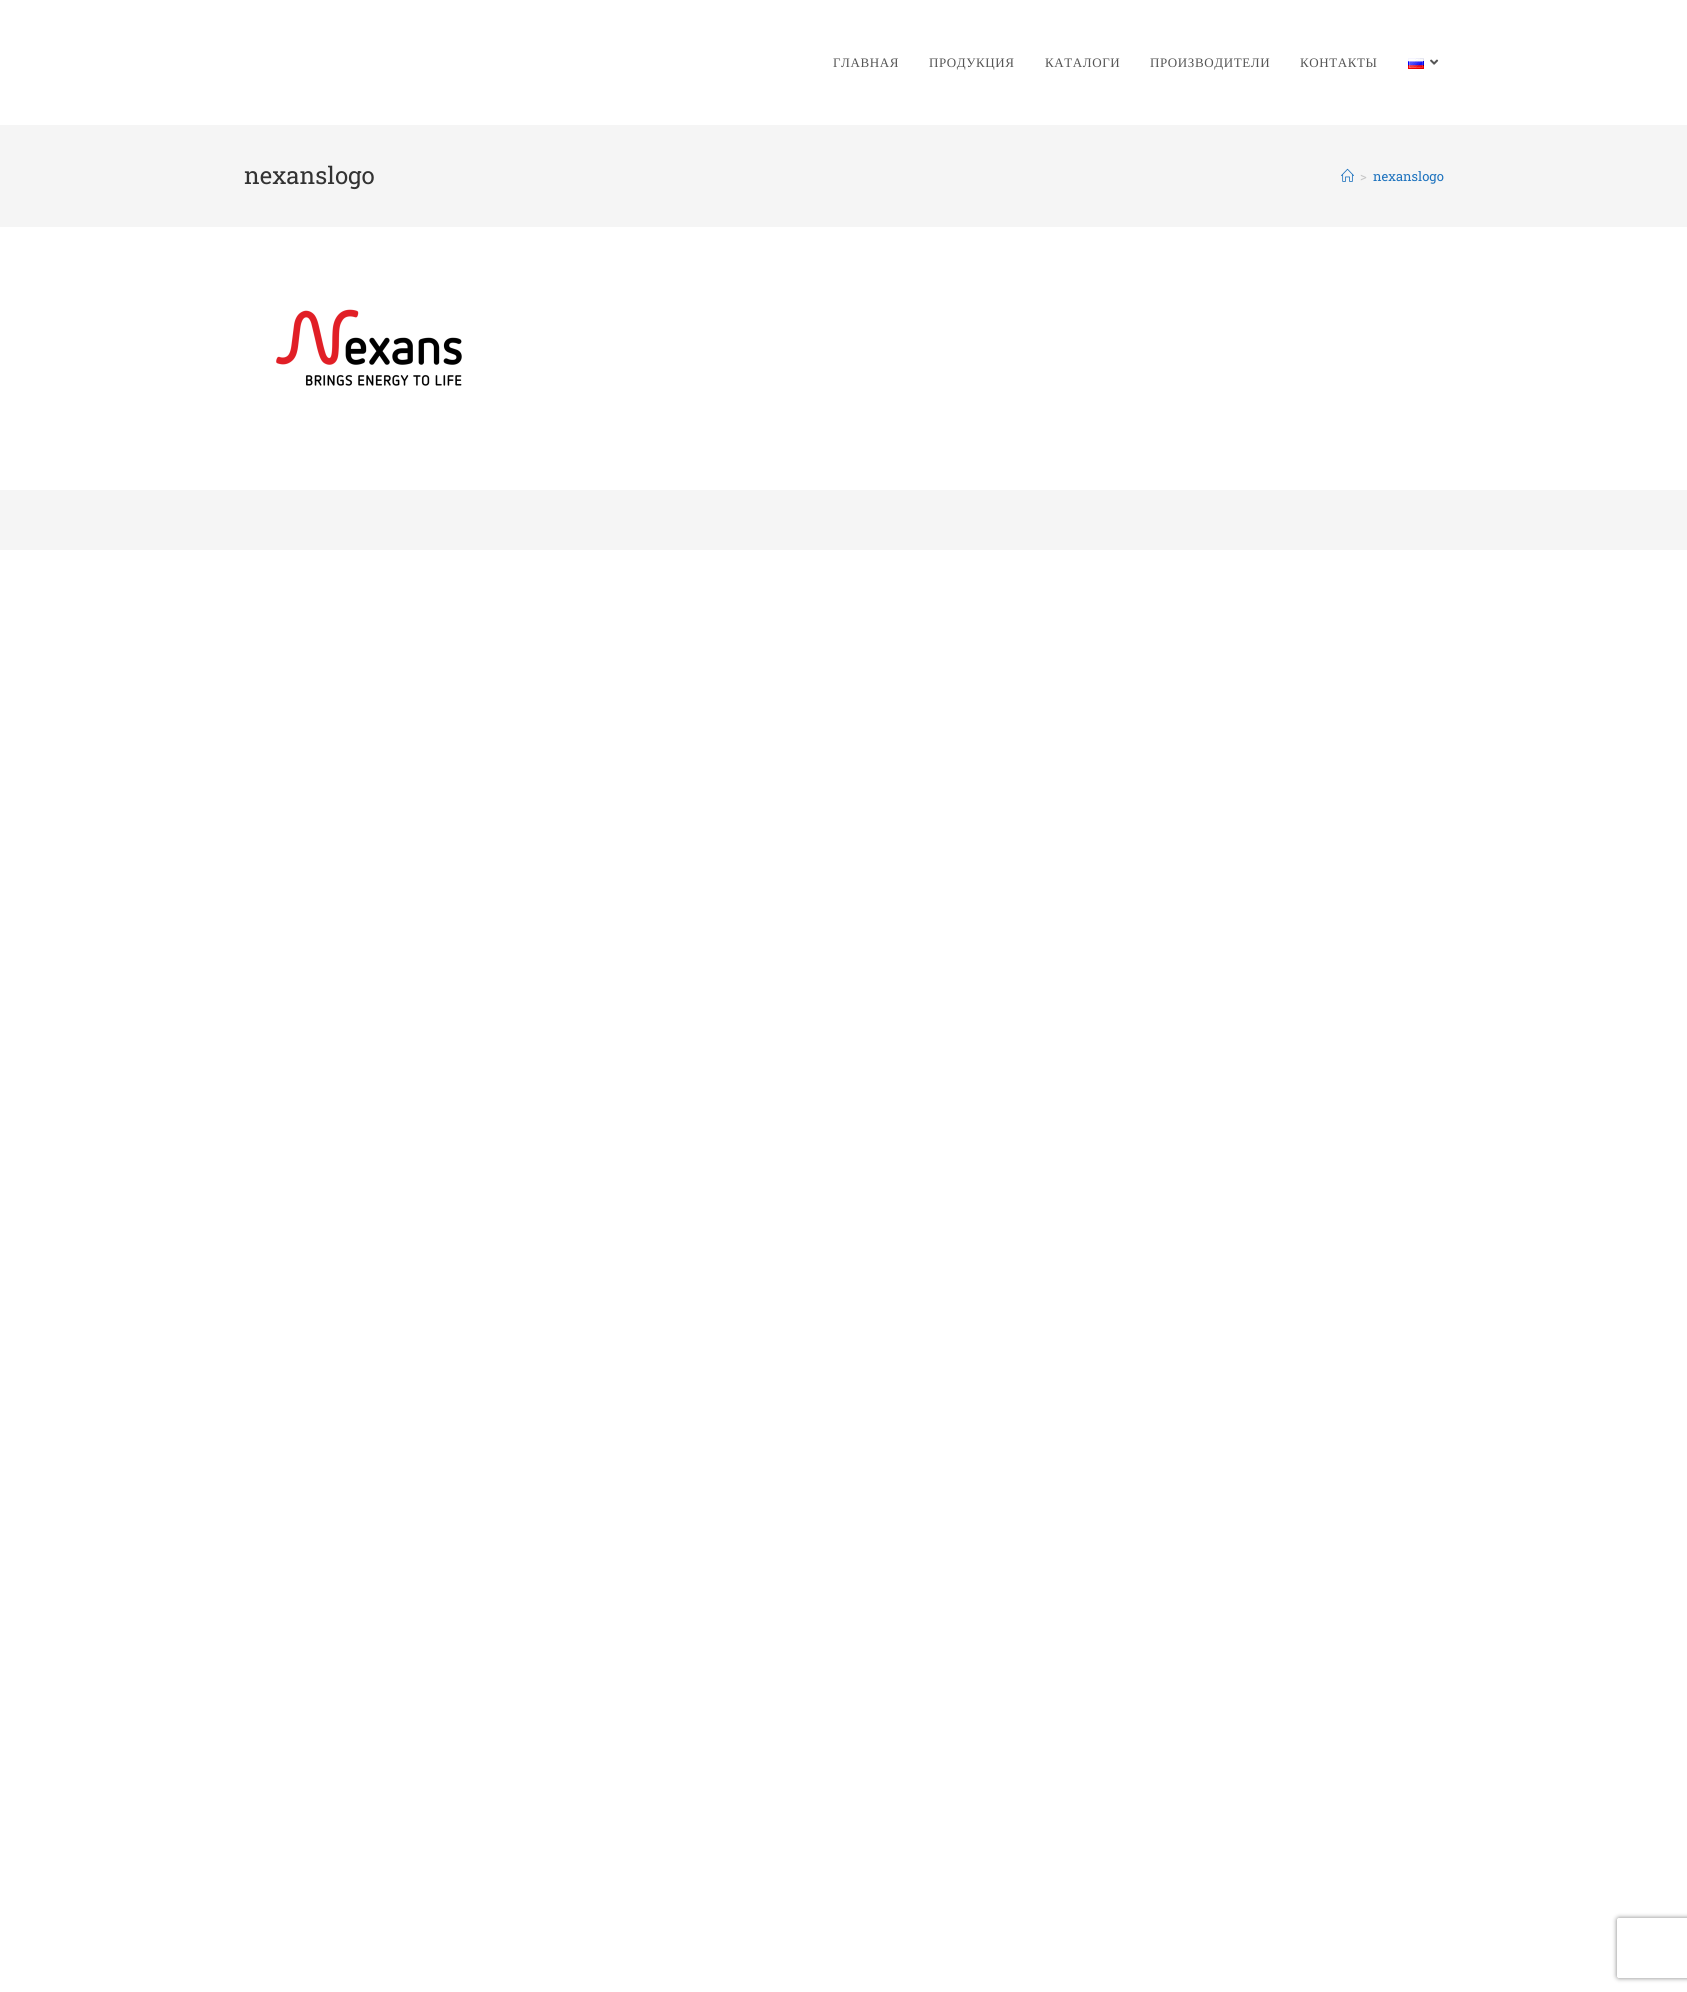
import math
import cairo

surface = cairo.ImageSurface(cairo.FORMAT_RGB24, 1687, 1992)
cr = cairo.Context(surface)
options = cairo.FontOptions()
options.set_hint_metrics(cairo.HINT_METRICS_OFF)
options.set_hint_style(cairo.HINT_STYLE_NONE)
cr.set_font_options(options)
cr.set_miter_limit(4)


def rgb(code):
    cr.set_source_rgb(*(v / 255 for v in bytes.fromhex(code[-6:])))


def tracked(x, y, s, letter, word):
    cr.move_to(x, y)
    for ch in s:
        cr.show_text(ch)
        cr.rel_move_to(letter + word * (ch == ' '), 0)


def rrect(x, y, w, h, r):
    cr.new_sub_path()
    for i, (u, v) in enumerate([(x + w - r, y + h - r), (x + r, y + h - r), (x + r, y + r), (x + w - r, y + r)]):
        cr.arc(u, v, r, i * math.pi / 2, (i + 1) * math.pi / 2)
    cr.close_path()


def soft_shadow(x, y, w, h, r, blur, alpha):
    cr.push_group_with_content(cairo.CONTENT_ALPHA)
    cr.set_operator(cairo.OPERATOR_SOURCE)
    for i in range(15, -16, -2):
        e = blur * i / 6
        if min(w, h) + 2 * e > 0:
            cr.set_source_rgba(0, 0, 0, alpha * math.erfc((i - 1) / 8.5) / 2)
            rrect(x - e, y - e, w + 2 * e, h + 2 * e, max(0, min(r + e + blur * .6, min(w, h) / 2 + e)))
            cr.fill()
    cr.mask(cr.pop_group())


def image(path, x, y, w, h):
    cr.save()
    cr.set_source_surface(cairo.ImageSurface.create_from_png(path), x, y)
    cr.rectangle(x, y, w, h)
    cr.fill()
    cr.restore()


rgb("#ffffff")
cr.paint()
image("img/1.png", 1408, 58, 16, 11)
image("img/2.png", 1430, 59, 9, 6)
rgb("#f5f5f5")
cr.rectangle(0, 125, 1687, 102)
cr.fill()
image("img/3.png", 1341, 168, 13, 14)
image("img/4.png", 276, 309, 186, 77)
cr.rectangle(0, 490, 1687, 60)
cr.fill()
cr.save()
cr.set_fill_rule(cairo.FILL_RULE_EVEN_ODD)
cr.new_path()
cr.move_to(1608, 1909)
cr.line_to(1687, 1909)
cr.line_to(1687, 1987)
cr.line_to(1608, 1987)
cr.close_path()
cr.move_to(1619, 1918)
cr.line_to(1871, 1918)
cr.curve_to(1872, 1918, 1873, 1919, 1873, 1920)
cr.line_to(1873, 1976)
cr.curve_to(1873, 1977, 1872, 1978, 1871, 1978)
cr.line_to(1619, 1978)
cr.curve_to(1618, 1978, 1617, 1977, 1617, 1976)
cr.line_to(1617, 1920)
cr.curve_to(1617, 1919, 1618, 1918, 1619, 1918)
cr.close_path()
cr.clip()
rgb("#808080")
soft_shadow(1617, 1918, 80, 60, 2, 2.5, 1)
cr.restore()
cr.select_font_face("Liberation Serif")
cr.set_font_size(13)
rgb("#555555")
for x, y, s in [
    (833, 67, "ГЛАВНАЯ"),
    (929, 67, "ПРОДУКЦИЯ"),
    (1045, 67, "КАТАЛОГИ"),
    (1150, 67, "ПРОИЗВОДИТЕЛИ"),
    (1300, 67, "КОНТАКТЫ"),
]:
    tracked(x, y, s, 0.6, 0)
cr.select_font_face("Roboto Slab")
cr.set_font_size(24)
rgb("#333333")
cr.move_to(244, 184)
cr.show_text("nexanslogo")
cr.set_font_size(13)
rgb("#c6c6c6")
cr.move_to(1360, 181)
cr.show_text(">")
rgb("#1e73be")
cr.move_to(1373, 181)
cr.show_text("nexanslogo")
surface.write_to_png("page.png")
